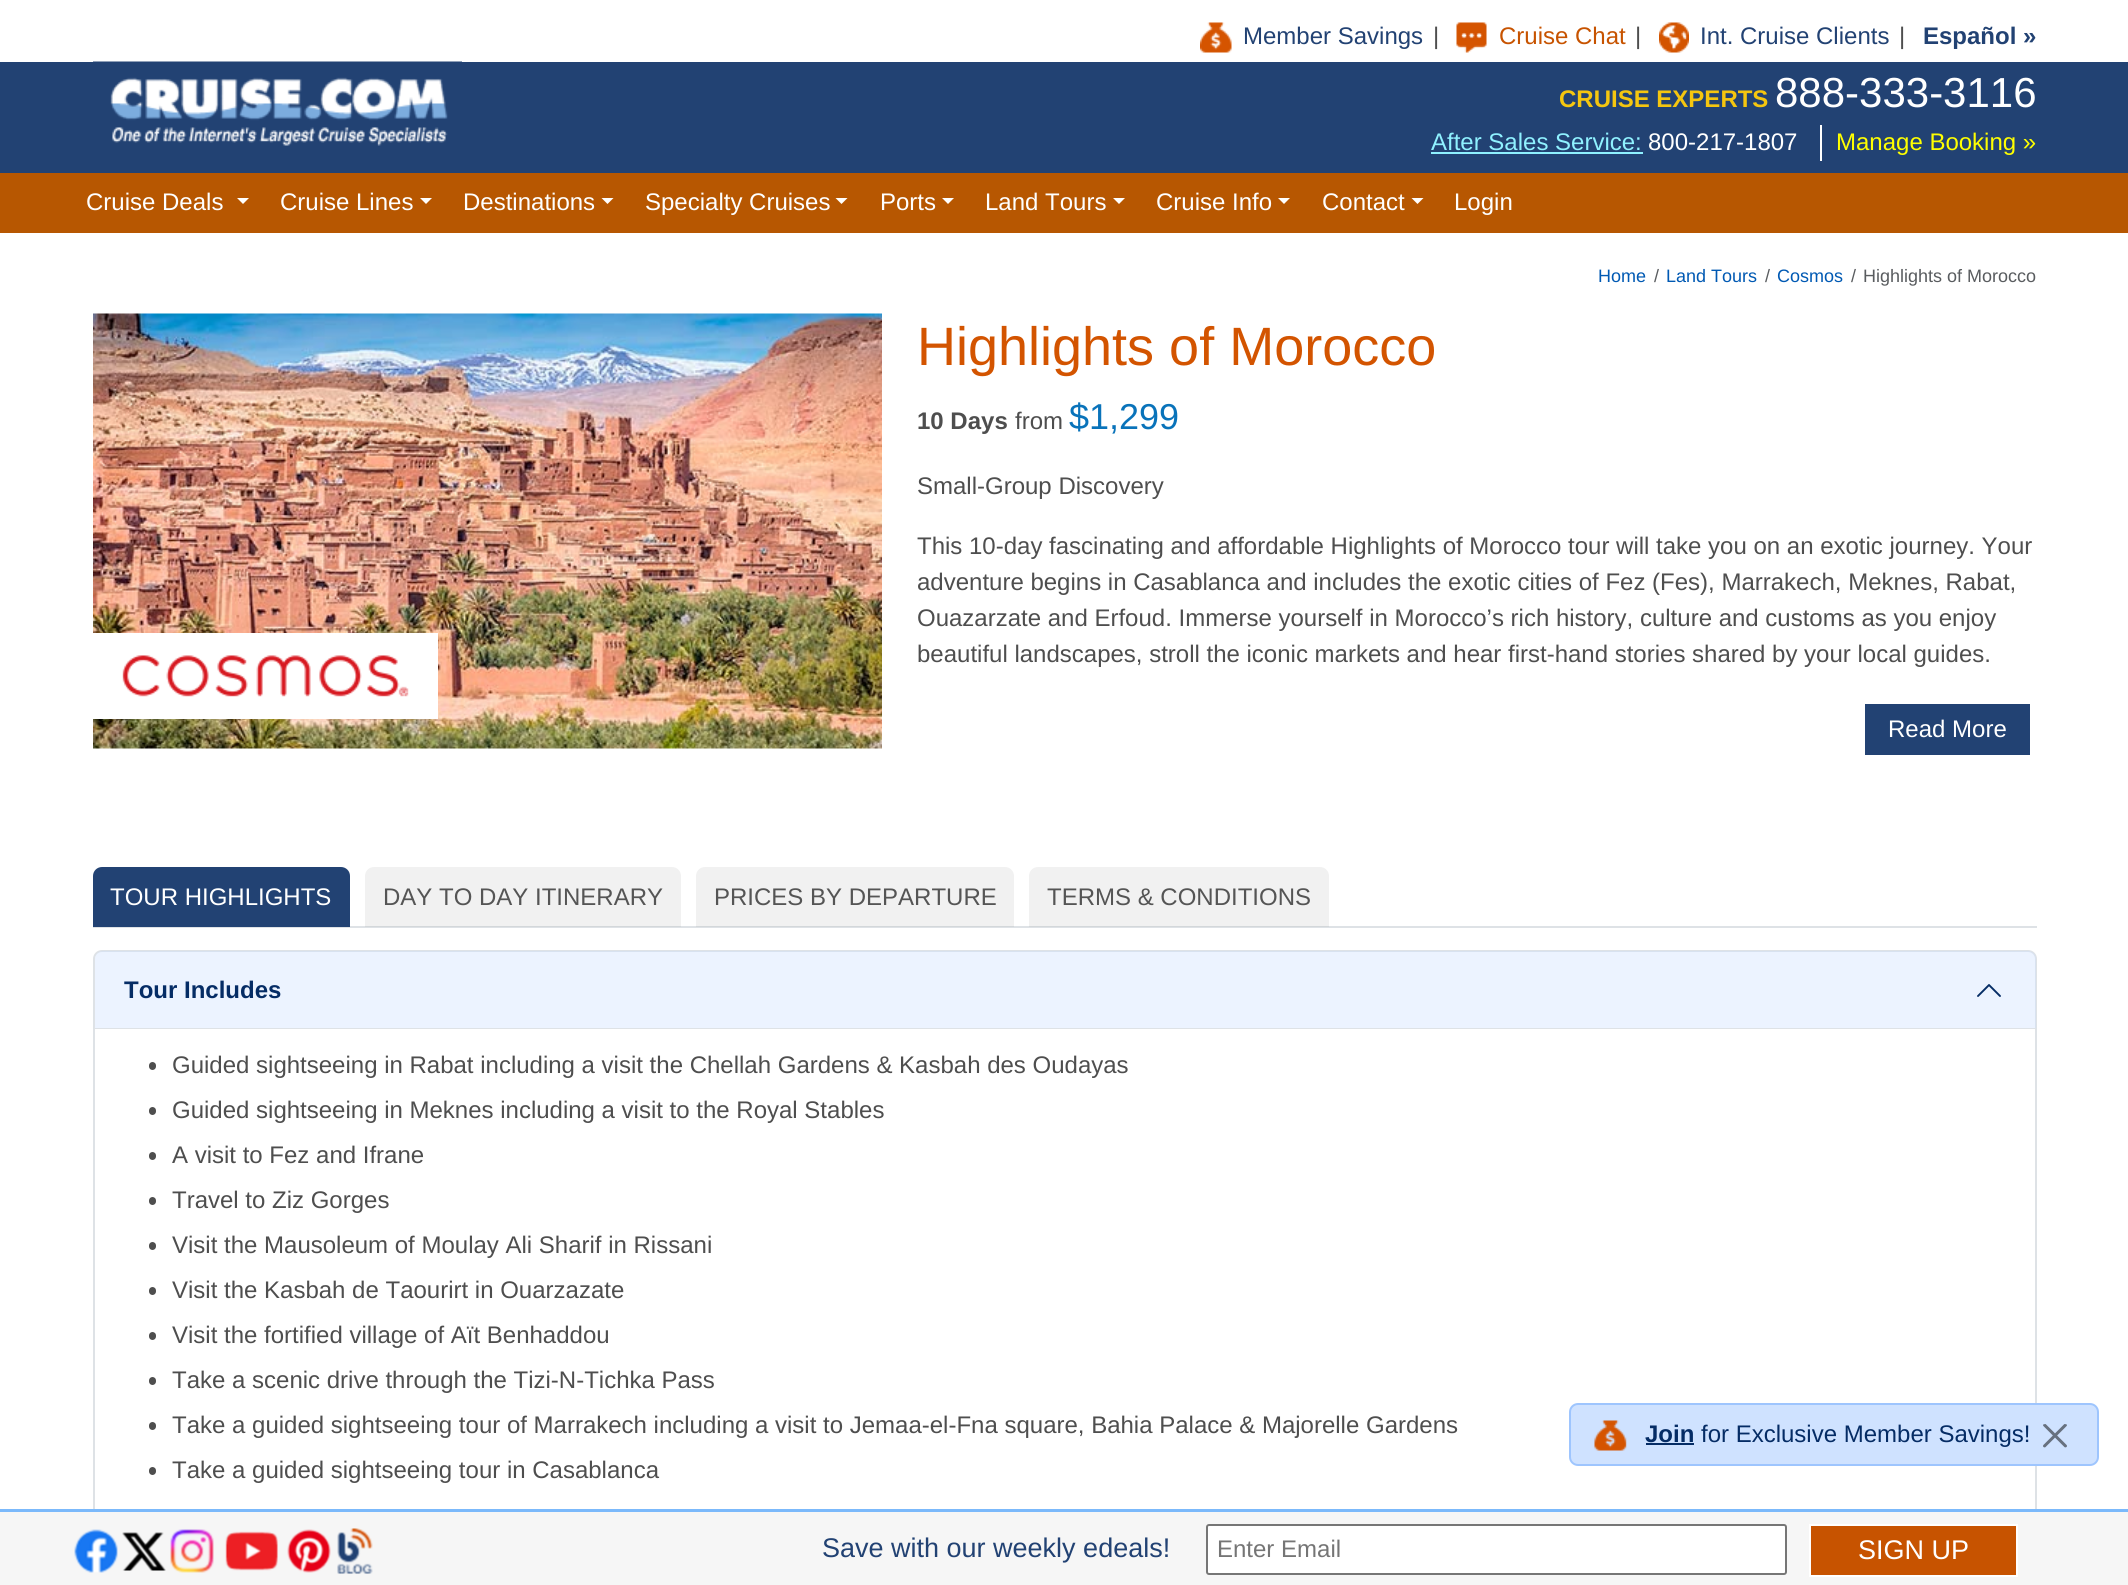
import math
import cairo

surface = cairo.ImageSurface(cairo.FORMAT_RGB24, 2128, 1585)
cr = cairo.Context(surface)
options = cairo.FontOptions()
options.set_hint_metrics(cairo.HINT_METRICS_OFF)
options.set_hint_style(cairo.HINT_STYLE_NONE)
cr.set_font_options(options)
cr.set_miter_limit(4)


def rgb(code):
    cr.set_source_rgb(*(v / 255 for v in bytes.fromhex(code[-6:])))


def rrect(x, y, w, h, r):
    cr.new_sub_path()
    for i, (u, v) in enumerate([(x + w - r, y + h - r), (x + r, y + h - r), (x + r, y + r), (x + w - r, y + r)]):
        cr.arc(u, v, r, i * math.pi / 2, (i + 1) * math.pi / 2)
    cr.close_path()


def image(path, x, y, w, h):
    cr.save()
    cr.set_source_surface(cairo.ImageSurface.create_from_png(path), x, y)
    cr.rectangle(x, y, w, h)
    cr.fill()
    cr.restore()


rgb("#ffffff")
cr.paint()
image("img/1.png", 1200, 22, 32, 31)
image("img/2.png", 1456, 22, 31, 31)
image("img/3.png", 1659, 22, 30, 31)
rgb("#224273")
cr.rectangle(0, 62, 2128, 111)
cr.fill()
image("img/4.png", 93, 61, 369, 85)
for x, y, w, h, color in [
    (1431, 152, 212, 2, "#8ff1ff"),
    (1820, 125, 2, 36, "#ffffff"),
    (0, 173, 2128, 60, "#b75701"),
]:
    rgb(color)
    cr.rectangle(x, y, w, h)
    cr.fill()
rgb("#ffffff")
cr.new_path()
cr.move_to(237, 198)
cr.line_to(249, 198)
cr.line_to(243, 204)
cr.close_path()
cr.fill()
cr.new_path()
cr.move_to(420, 198)
cr.line_to(432, 198)
cr.line_to(426, 204)
cr.close_path()
cr.fill()
cr.new_path()
cr.move_to(601.5, 198)
cr.line_to(613.5, 198)
cr.line_to(607.5, 204)
cr.close_path()
cr.fill()
cr.new_path()
cr.move_to(835.5, 198)
cr.line_to(847.5, 198)
cr.line_to(841.5, 204)
cr.close_path()
cr.fill()
cr.new_path()
cr.move_to(942, 198)
cr.line_to(954, 198)
cr.line_to(948, 204)
cr.close_path()
cr.fill()
cr.new_path()
cr.move_to(1113, 198)
cr.line_to(1125, 198)
cr.line_to(1119, 204)
cr.close_path()
cr.fill()
cr.new_path()
cr.move_to(1278, 198)
cr.line_to(1290, 198)
cr.line_to(1284, 204)
cr.close_path()
cr.fill()
cr.new_path()
cr.move_to(1411.5, 198)
cr.line_to(1423.5, 198)
cr.line_to(1417.5, 204)
cr.close_path()
cr.fill()
image("img/5.png", 93, 313, 789, 436)
cr.rectangle(93, 633, 345, 86)
cr.fill()
image("img/6.png", 122, 655, 287, 42)
rgb("#224273")
cr.rectangle(1865, 704, 165, 51)
cr.fill()
rgb("#dee2e6")
cr.rectangle(93, 926, 1944, 2)
cr.fill()
rgb("#224273")
cr.new_path()
cr.move_to(102, 867)
cr.line_to(341, 867)
cr.curve_to(346, 867, 350, 871, 350, 876)
cr.line_to(350, 927)
cr.line_to(93, 927)
cr.line_to(93, 876)
cr.curve_to(93, 871, 97, 867, 102, 867)
cr.close_path()
cr.fill()
cr.set_source_rgba(0.439, 0.439, 0.439, 0.1)
cr.new_path()
cr.move_to(374, 867)
cr.line_to(672, 867)
cr.curve_to(677, 867, 681, 871, 681, 876)
cr.line_to(681, 927)
cr.line_to(365, 927)
cr.line_to(365, 876)
cr.curve_to(365, 871, 369, 867, 374, 867)
cr.close_path()
cr.fill()
cr.new_path()
cr.move_to(705, 867)
cr.line_to(1005, 867)
cr.curve_to(1010, 867, 1014, 871, 1014, 876)
cr.line_to(1014, 927)
cr.line_to(696, 927)
cr.line_to(696, 876)
cr.curve_to(696, 871, 700, 867, 705, 867)
cr.close_path()
cr.fill()
cr.new_path()
cr.move_to(1038, 867)
cr.line_to(1320, 867)
cr.curve_to(1325, 867, 1329, 871, 1329, 876)
cr.line_to(1329, 927)
cr.line_to(1029, 927)
cr.line_to(1029, 876)
cr.curve_to(1029, 871, 1033, 867, 1038, 867)
cr.close_path()
cr.fill()
cr.new_path()
cr.move_to(102, 951)
cr.line_to(2028, 951)
cr.curve_to(2032.5, 951, 2036, 954.5, 2036, 959)
cr.line_to(2036, 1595)
cr.line_to(94, 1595)
cr.line_to(94, 959)
cr.curve_to(94, 954.5, 97.5, 951, 102, 951)
cr.close_path()
rgb("#dee2e6")
cr.stroke()
cr.set_source_rgba(0.812, 0.886, 1, 0.4)
cr.new_path()
cr.move_to(103, 951)
cr.line_to(2028, 951)
cr.curve_to(2032.5, 951, 2036, 954.5, 2036, 959)
cr.line_to(2036, 1029)
cr.line_to(95, 1029)
cr.line_to(95, 959)
cr.curve_to(95, 954.5, 98.5, 951, 103, 951)
cr.close_path()
cr.fill()
rgb("#dee2e6")
cr.rectangle(95, 1028, 1941, 1)
cr.fill()
cr.new_path()
cr.move_to(2000, 996)
cr.line_to(1989, 985)
cr.line_to(1978, 996)
rgb("#052c65")
cr.set_line_width(1.9)
cr.set_line_cap(cairo.LINE_CAP_ROUND)
cr.set_line_join(cairo.LINE_JOIN_ROUND)
cr.stroke()
rgb("#4e4e4e")
rrect(149, 1062, 7, 8, 3.5)
cr.fill()
rrect(149, 1107, 7, 8, 3.5)
cr.fill()
rrect(149, 1152, 7, 8, 3.5)
cr.fill()
rrect(149, 1197, 7, 8, 3.5)
cr.fill()
rrect(149, 1242, 7, 8, 3.5)
cr.fill()
rrect(149, 1287, 7, 8, 3.5)
cr.fill()
rrect(149, 1332, 7, 8, 3.5)
cr.fill()
rrect(149, 1377, 7, 8, 3.5)
cr.fill()
rrect(149, 1422, 7, 8, 3.5)
cr.fill()
rrect(149, 1467, 7, 8, 3.5)
cr.fill()
rgb("#cfe2ff")
rrect(1570, 1404, 528, 61, 8)
cr.fill_preserve()
rgb("#9ec5fe")
cr.set_line_width(2)
cr.set_line_cap(cairo.LINE_CAP_BUTT)
cr.set_line_join(cairo.LINE_JOIN_MITER)
cr.stroke()
image("img/7.png", 1594, 1420, 33, 31)
rgb("#052c65")
cr.rectangle(1646, 1443, 48, 2)
cr.fill()
image("img/8.png", 2043, 1424, 24, 24)
rgb("#f6f6f6")
cr.rectangle(0, 1512, 2128, 73)
cr.fill()
rgb("#7bb9fb")
cr.rectangle(0, 1509, 2128, 3)
cr.fill()
image("img/9.png", 74, 1529, 44, 44)
image("img/10.png", 122, 1532, 44, 39)
image("img/11.png", 170, 1529, 44, 44)
image("img/12.png", 225, 1531, 53, 40)
image("img/13.png", 287, 1529, 44, 44)
image("img/14.png", 337, 1528, 36, 46)
rgb("#ffffff")
rrect(1207, 1525, 579, 49, 2)
cr.fill_preserve()
rgb("#767676")
cr.stroke()
rgb("#c75300")
cr.rectangle(1810, 1525, 207, 51)
cr.fill_preserve()
rgb("#ffffff")
cr.stroke()
cr.select_font_face("Liberation Sans")
cr.set_font_size(24)
rgb("#224273")
cr.move_to(1243, 44)
cr.show_text("Member Savings")
rgb("#4e4e4e")
cr.move_to(1433, 44)
cr.show_text("|")
rgb("#c75300")
cr.move_to(1499, 44)
cr.show_text("Cruise Chat")
rgb("#4e4e4e")
cr.move_to(1635, 44)
cr.show_text("|")
rgb("#224273")
cr.move_to(1700, 44)
cr.show_text("Int. Cruise Clients")
rgb("#4e4e4e")
cr.move_to(1899, 44)
cr.show_text("|")
cr.select_font_face("Liberation Sans", cairo.FONT_SLANT_NORMAL, cairo.FONT_WEIGHT_BOLD)
rgb("#224273")
cr.move_to(1923, 44)
cr.show_text("Español »")
rgb("#f5c60f")
cr.move_to(1559, 107)
cr.show_text("CRUISE EXPERTS")
cr.select_font_face("Liberation Sans")
cr.set_font_size(42)
rgb("#ffffff")
cr.move_to(1775, 107)
cr.show_text("888-333-3116")
cr.set_font_size(24)
rgb("#8ff1ff")
cr.move_to(1431, 150)
cr.show_text("After Sales Service:")
rgb("#ffffff")
cr.move_to(1648, 150)
cr.show_text("800-217-1807")
rgb("#ffff00")
cr.move_to(1836, 150)
cr.show_text("Manage Booking »")
rgb("#ffffff")
for x, y, s in [
    (86, 210, "Cruise Deals"),
    (280, 210, "Cruise Lines"),
    (463, 210, "Destinations"),
    (645, 210, "Specialty Cruises"),
    (880, 210, "Ports"),
    (985, 210, "Land Tours"),
    (1156, 210, "Cruise Info"),
    (1322, 210, "Contact"),
    (1454, 210, "Login"),
]:
    cr.move_to(x, y)
    cr.show_text(s)
cr.set_font_size(18)
rgb("#0059b3")
cr.move_to(1598, 282)
cr.show_text("Home")
rgb("#595c5f")
cr.move_to(1654, 282)
cr.show_text("/")
rgb("#0059b3")
cr.move_to(1666, 282)
cr.show_text("Land Tours")
rgb("#595c5f")
cr.move_to(1765, 282)
cr.show_text("/")
rgb("#0059b3")
cr.move_to(1777, 282)
cr.show_text("Cosmos")
rgb("#595c5f")
cr.move_to(1851, 282)
cr.show_text("/")
cr.move_to(1863, 282)
cr.show_text("Highlights of Morocco")
cr.set_font_size(54)
rgb("#d35400")
cr.move_to(917, 365)
cr.show_text("Highlights of Morocco")
cr.select_font_face("Liberation Sans", cairo.FONT_SLANT_NORMAL, cairo.FONT_WEIGHT_BOLD)
cr.set_font_size(24)
rgb("#4e4e4e")
cr.move_to(917, 429)
cr.show_text("10 Days")
cr.select_font_face("Liberation Sans")
cr.move_to(1015, 429)
cr.show_text("from")
cr.set_font_size(36)
rgb("#0973ba")
cr.move_to(1069, 429)
cr.show_text("$1,299")
cr.set_font_size(24)
rgb("#4e4e4e")
for x, y, s in [
    (917, 494, "Small-Group Discovery"),
    (917, 554, "This 10-day fascinating and affordable Highlights of Morocco tour will take you on an exotic journey. Your"),
    (917, 590, "adventure begins in Casablanca and includes the exotic cities of Fez (Fes), Marrakech, Meknes, Rabat,"),
    (917, 626, "Ouazarzate and Erfoud. Immerse yourself in Morocco’s rich history, culture and customs as you enjoy"),
    (917, 662, "beautiful landscapes, stroll the iconic markets and hear first-hand stories shared by your local guides."),
]:
    cr.move_to(x, y)
    cr.show_text(s)
rgb("#ffffff")
cr.move_to(1888, 737)
cr.show_text("Read More")
cr.move_to(110, 905)
cr.show_text("TOUR HIGHLIGHTS")
rgb("#555555")
for x, y, s in [
    (383, 905, "DAY TO DAY ITINERARY"),
    (714, 905, "PRICES BY DEPARTURE"),
    (1047, 905, "TERMS & CONDITIONS"),
]:
    cr.move_to(x, y)
    cr.show_text(s)
cr.select_font_face("Liberation Sans", cairo.FONT_SLANT_NORMAL, cairo.FONT_WEIGHT_BOLD)
rgb("#052c65")
cr.move_to(124, 998)
cr.show_text("Tour Includes")
cr.select_font_face("Liberation Sans")
rgb("#4e4e4e")
for x, y, s in [
    (172, 1073, "Guided sightseeing in Rabat including a visit the Chellah Gardens & Kasbah des Oudayas"),
    (172, 1118, "Guided sightseeing in Meknes including a visit to the Royal Stables"),
    (172, 1163, "A visit to Fez and Ifrane"),
    (172, 1208, "Travel to Ziz Gorges"),
    (172, 1253, "Visit the Mausoleum of Moulay Ali Sharif in Rissani"),
    (172, 1298, "Visit the Kasbah de Taourirt in Ouarzazate"),
    (172, 1343, "Visit the fortified village of Aït Benhaddou"),
    (172, 1388, "Take a scenic drive through the Tizi-N-Tichka Pass"),
    (172, 1433, "Take a guided sightseeing tour of Marrakech including a visit to Jemaa-el-Fna square, Bahia Palace & Majorelle Gardens"),
    (172, 1478, "Take a guided sightseeing tour in Casablanca"),
]:
    cr.move_to(x, y)
    cr.show_text(s)
cr.select_font_face("Liberation Sans", cairo.FONT_SLANT_NORMAL, cairo.FONT_WEIGHT_BOLD)
rgb("#052c65")
cr.move_to(1645, 1442)
cr.show_text("Join")
cr.select_font_face("Liberation Sans")
cr.move_to(1701, 1442)
cr.show_text("for Exclusive Member Savings!")
cr.set_font_size(27)
rgb("#224273")
cr.move_to(822, 1557)
cr.show_text("Save with our weekly edeals!")
cr.set_font_size(24)
rgb("#757575")
cr.move_to(1217, 1557)
cr.show_text("Enter Email")
cr.set_font_size(27)
rgb("#ffffff")
cr.move_to(1858, 1559)
cr.show_text("SIGN UP")
surface.write_to_png("page.png")
